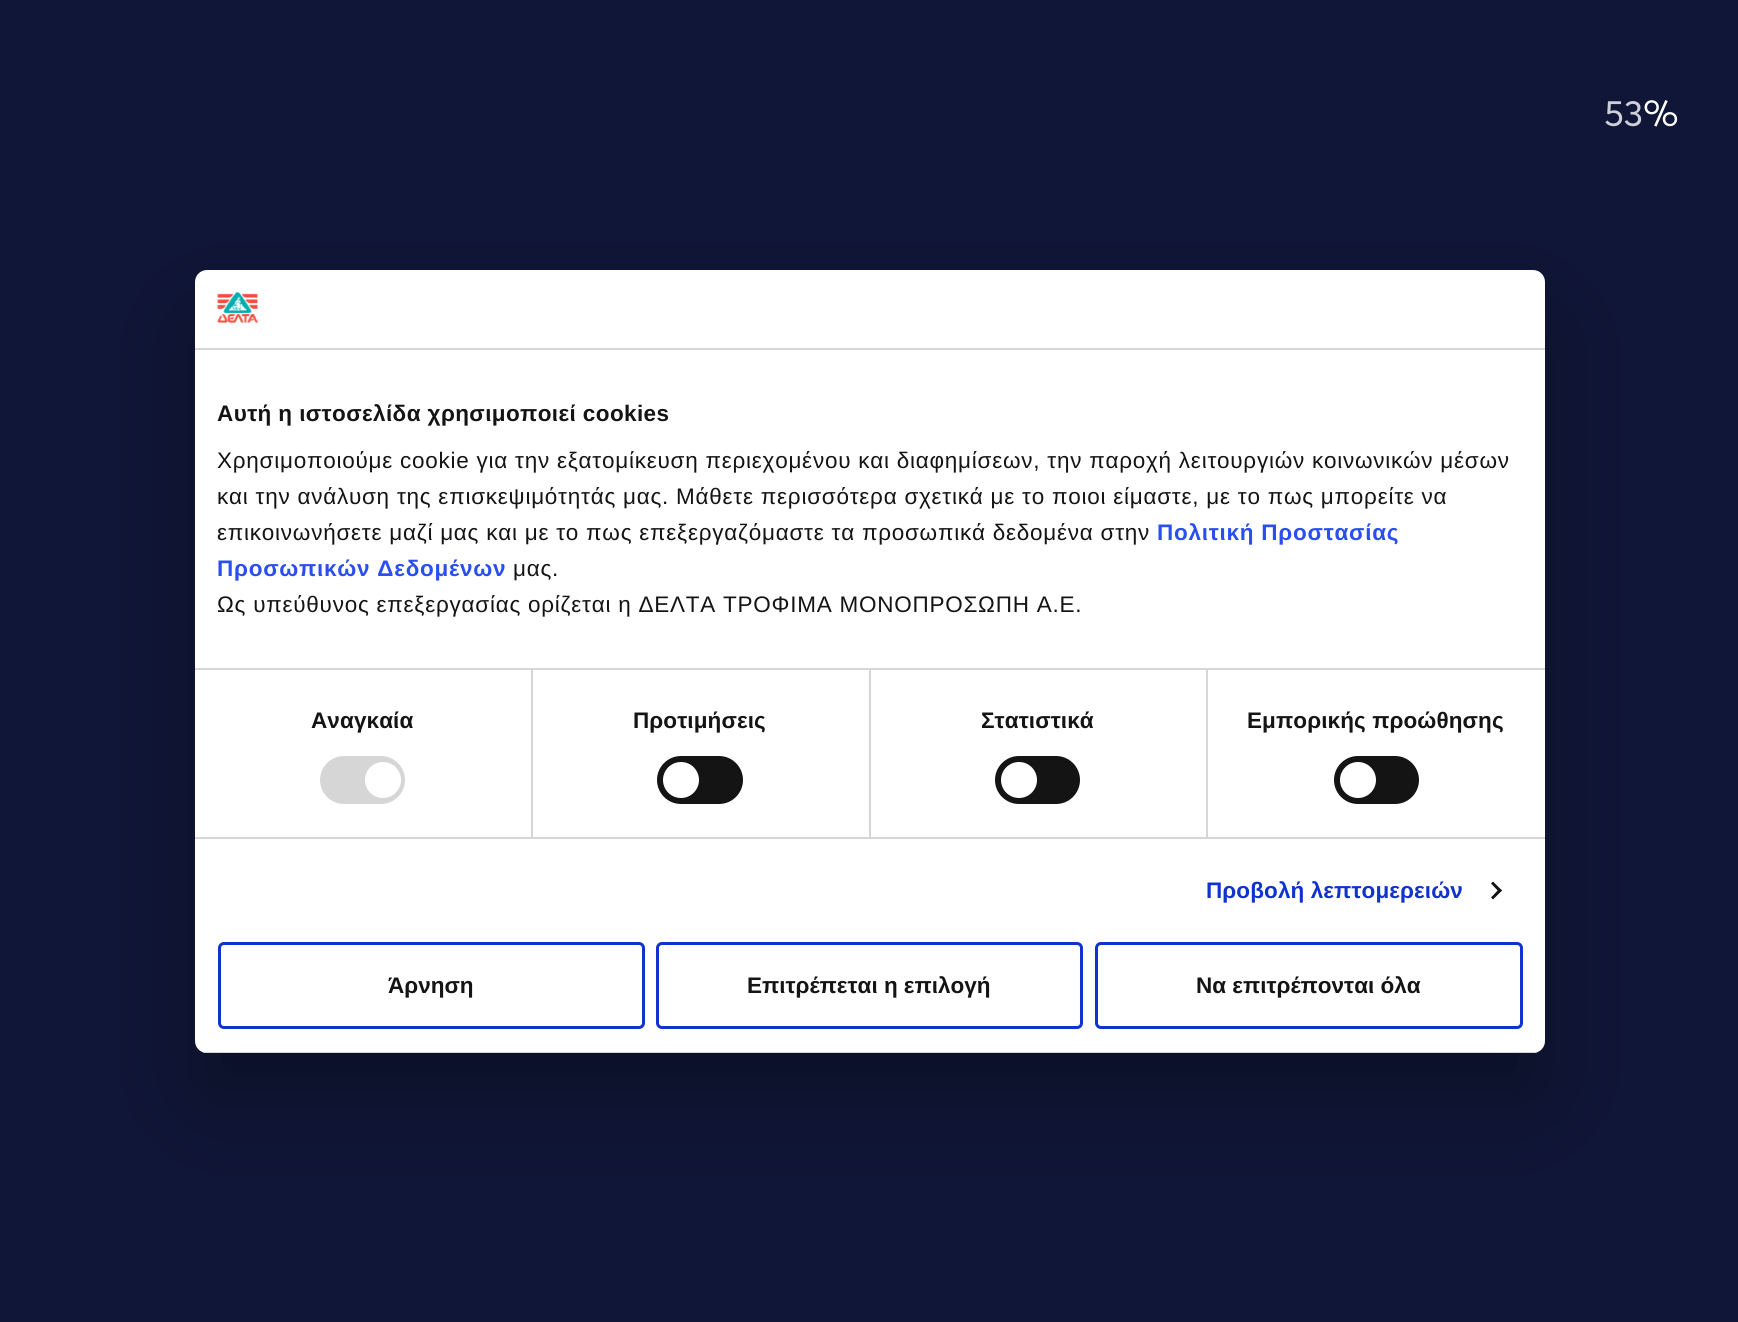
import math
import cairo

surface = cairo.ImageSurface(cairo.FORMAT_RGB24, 1738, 1322)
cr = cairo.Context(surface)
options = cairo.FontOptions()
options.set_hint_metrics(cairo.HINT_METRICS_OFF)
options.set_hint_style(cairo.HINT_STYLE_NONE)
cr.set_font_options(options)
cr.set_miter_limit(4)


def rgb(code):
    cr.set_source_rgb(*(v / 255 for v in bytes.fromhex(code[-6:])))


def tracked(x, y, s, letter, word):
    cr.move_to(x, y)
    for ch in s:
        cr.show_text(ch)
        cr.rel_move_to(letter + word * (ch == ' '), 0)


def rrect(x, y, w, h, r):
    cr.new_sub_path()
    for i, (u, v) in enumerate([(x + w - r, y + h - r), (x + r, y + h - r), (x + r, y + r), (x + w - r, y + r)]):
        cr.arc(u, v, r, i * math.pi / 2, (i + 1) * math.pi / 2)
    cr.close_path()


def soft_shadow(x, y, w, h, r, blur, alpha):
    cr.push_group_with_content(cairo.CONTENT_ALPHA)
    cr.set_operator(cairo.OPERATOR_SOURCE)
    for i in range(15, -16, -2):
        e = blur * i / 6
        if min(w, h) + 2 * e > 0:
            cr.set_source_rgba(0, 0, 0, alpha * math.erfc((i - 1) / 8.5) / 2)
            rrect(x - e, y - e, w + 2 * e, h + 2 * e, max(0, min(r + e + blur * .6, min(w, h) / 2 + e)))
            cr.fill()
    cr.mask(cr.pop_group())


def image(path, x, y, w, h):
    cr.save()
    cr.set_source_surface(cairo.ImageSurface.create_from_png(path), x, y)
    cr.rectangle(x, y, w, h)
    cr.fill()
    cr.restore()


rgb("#101638")
cr.paint()
rgb("#000000")
soft_shadow(195, 318, 1350, 783, 12, 51, 0.3)
rgb("#ffffff")
rrect(195, 270, 1350, 783, 12)
cr.fill()
rgb("#d6d6d6")
cr.rectangle(195, 348, 1350, 2)
cr.fill()
image("img/1.png", 217, 292, 41, 31)
for x, y, w, h, color in [
    (531, 669, 2, 168, "#d6d6d6"),
    (869, 669, 2, 168, "#d6d6d6"),
    (1206, 669, 2, 168, "#d6d6d6"),
    (195, 668, 1350, 2, "#d6d6d6"),
    (195, 837, 1350, 2, "#d6d6d6"),
]:
    rgb(color)
    cr.rectangle(x, y, w, h)
    cr.fill()
rrect(320, 756, 85, 48, 24)
cr.fill()
rgb("#ffffff")
cr.arc(383, 780, 18, 0, 2 * math.pi)
cr.fill()
rgb("#141414")
rrect(657, 756, 86, 48, 24)
cr.fill()
rgb("#ffffff")
cr.arc(681, 780, 18, 0, 2 * math.pi)
cr.fill()
rgb("#141414")
rrect(995, 756, 85, 48, 24)
cr.fill()
rgb("#ffffff")
cr.arc(1019, 780, 18, 0, 2 * math.pi)
cr.fill()
rgb("#141414")
rrect(1334, 756, 85, 48, 24)
cr.fill()
rgb("#ffffff")
cr.arc(1358, 780, 18, 0, 2 * math.pi)
cr.fill()
rgb("#141414")
cr.new_path()
cr.move_to(1493, 881.5)
cr.line_to(1502, 890.5)
cr.line_to(1499.5, 892.5)
cr.line_to(1491, 883.5)
cr.close_path()
cr.fill()
cr.new_path()
cr.move_to(1499.5, 888.5)
cr.line_to(1502, 890.5)
cr.line_to(1493, 899.5)
cr.line_to(1491, 897.5)
cr.close_path()
cr.fill()
cr.save()
rrect(195, 270, 1350, 783, 12)
cr.clip()
rgb("#d6d6d6")
cr.rectangle(195, 1052, 1350, 1)
cr.fill()
cr.restore()
rrect(219.5, 943.5, 424, 84, 4.5)
rgb("#1032cf")
cr.set_line_width(3)
cr.stroke()
rrect(657.5, 943.5, 424, 84, 4.5)
cr.stroke()
rrect(1096.5, 943.5, 425, 84, 4.5)
cr.stroke()
cr.select_font_face("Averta")
cr.set_font_size(36)
rgb("#cfd0d7")
cr.move_to(1604, 126)
cr.show_text("53")
rgb("#ffffff")
cr.move_to(1643, 126)
cr.show_text("%")
cr.select_font_face("Liberation Sans", cairo.FONT_SLANT_NORMAL, cairo.FONT_WEIGHT_BOLD)
cr.set_font_size(22.5)
rgb("#141414")
tracked(217, 421, "Αυτή η ιστοσελίδα χρησιμοποιεί cookies", 0.4, 0)
cr.select_font_face("Liberation Sans")
for x, y, s in [
    (217, 468, "Χρησιμοποιούμε cookie για την εξατομίκευση περιεχομένου και διαφημίσεων, την παροχή λειτουργιών κοινωνικών μέσων"),
    (217, 504, "και την ανάλυση της επισκεψιμότητάς μας. Μάθετε περισσότερα σχετικά με το ποιοι είμαστε, με το πως μπορείτε να"),
    (217, 540, "επικοινωνήσετε μαζί μας και με το πως επεξεργαζόμαστε τα προσωπικά δεδομένα στην"),
]:
    tracked(x, y, s, 0.75, 0)
cr.select_font_face("Liberation Sans", cairo.FONT_SLANT_NORMAL, cairo.FONT_WEIGHT_BOLD)
rgb("#2a4eef")
tracked(1157, 540, "Πολιτική Προστασίας", 0.75, 0)
tracked(217, 576, "Προσωπικών Δεδομένων", 0.75, 0)
cr.select_font_face("Liberation Sans")
rgb("#141414")
tracked(513, 576, "μας.", 0.75, 0)
tracked(217, 612, "Ως υπεύθυνος επεξεργασίας ορίζεται η ΔΕΛΤΑ ΤΡΟΦΙΜΑ ΜΟΝΟΠΡΟΣΩΠΗ Α.Ε.", 0.75, 0)
cr.select_font_face("Liberation Sans", cairo.FONT_SLANT_NORMAL, cairo.FONT_WEIGHT_BOLD)
for x, y, s in [
    (311, 728, "Αναγκαία"),
    (633, 728, "Προτιμήσεις"),
    (981, 728, "Στατιστικά"),
    (1247, 728, "Εμπορικής προώθησης"),
]:
    tracked(x, y, s, 0.1, 0)
rgb("#1032cf")
tracked(1206, 898, "Προβολή λεπτομερειών", 0.1, 0)
rgb("#141414")
for x, y, s in [
    (388, 993, "Άρνηση"),
    (747, 993, "Επιτρέπεται η επιλογή"),
    (1196, 993, "Να επιτρέπονται όλα"),
]:
    cr.move_to(x, y)
    cr.show_text(s)
surface.write_to_png("page.png")
